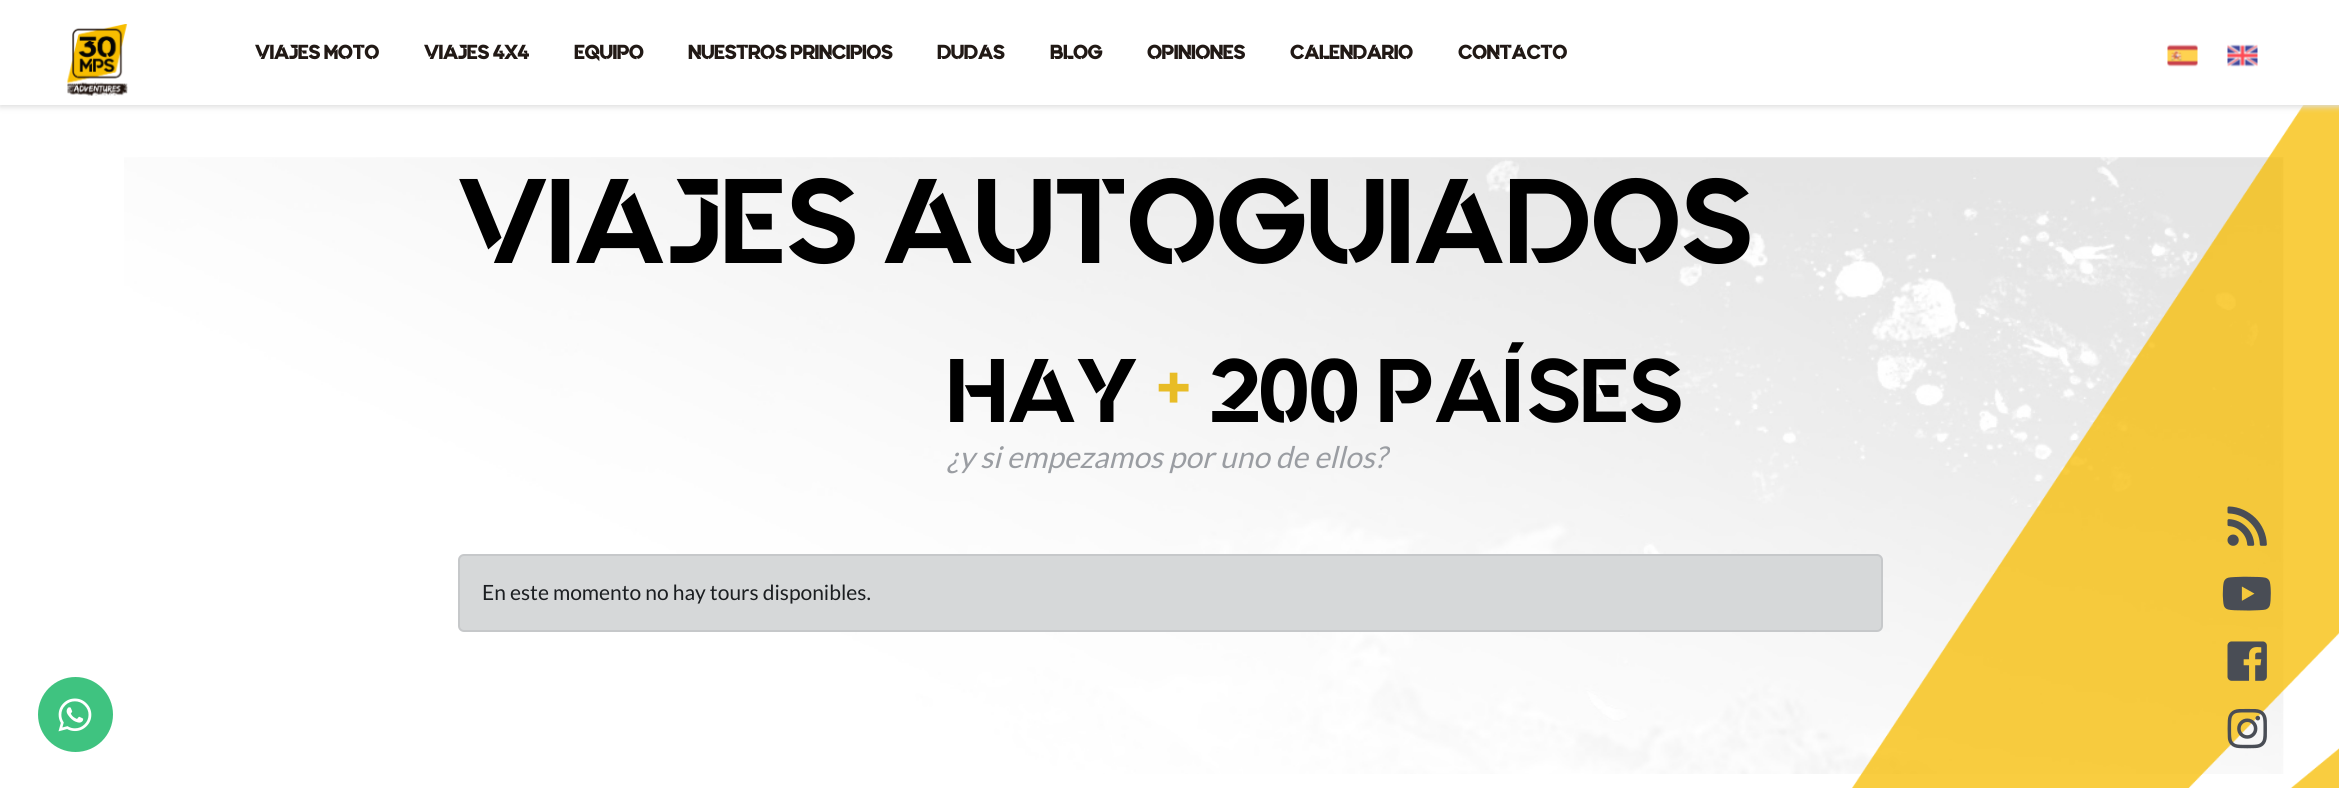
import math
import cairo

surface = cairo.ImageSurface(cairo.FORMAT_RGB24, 2339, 788)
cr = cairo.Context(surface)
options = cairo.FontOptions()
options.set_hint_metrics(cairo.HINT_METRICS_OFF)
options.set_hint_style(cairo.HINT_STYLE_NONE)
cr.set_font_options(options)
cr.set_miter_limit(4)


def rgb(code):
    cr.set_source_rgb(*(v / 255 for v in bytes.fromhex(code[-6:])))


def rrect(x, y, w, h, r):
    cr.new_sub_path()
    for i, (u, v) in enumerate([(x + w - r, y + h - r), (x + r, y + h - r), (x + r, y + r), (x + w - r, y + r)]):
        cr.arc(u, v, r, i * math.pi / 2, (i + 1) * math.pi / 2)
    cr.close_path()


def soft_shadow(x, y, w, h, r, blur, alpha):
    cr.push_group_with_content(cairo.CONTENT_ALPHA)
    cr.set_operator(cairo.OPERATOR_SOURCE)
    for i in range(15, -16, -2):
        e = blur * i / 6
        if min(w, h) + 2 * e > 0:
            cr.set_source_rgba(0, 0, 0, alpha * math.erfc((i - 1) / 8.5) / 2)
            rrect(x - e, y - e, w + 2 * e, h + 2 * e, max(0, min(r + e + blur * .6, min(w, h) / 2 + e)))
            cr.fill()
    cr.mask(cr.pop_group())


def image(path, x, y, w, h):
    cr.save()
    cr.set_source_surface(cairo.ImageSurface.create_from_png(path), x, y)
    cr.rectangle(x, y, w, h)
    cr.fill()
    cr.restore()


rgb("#ffffff")
cr.paint()
image("img/4.png", 124, 157, 2160, 617)
rgb("#d6d8d9")
rrect(459, 555, 1423, 76, 5)
cr.fill_preserve()
rgb("#c6c8ca")
cr.stroke()
image("img/5.png", 1852, 105, 487, 683)
rgb("#dddddd")
soft_shadow(0, 2, 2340, 105, 0, 3, 1)
rgb("#ffffff")
cr.rectangle(0, 0, 2339, 105)
cr.fill()
image("img/1.png", 67, 24, 61, 72)
image("img/2.png", 2167, 44, 31, 23)
image("img/3.png", 2227, 44, 31, 23)
image("img/6.png", 2227, 506, 40, 40)
image("img/7.png", 2222, 576, 49, 35)
image("img/8.png", 2227, 641, 40, 40)
image("img/9.png", 2227, 708, 40, 41)
rgb("#3fc380")
cr.arc(75.5, 714.5, 37.5, 0, 2 * math.pi)
cr.fill()
image("img/10.png", 58, 698, 34, 34)
cr.select_font_face("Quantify", cairo.FONT_SLANT_NORMAL, cairo.FONT_WEIGHT_BOLD)
cr.set_font_size(19.5)
rgb("#211915")
for x, y, s in [
    (255, 59, "VIAJES MOTO"),
    (424, 59, "VIAJES 4X4"),
    (574, 59, "EQUIPO"),
    (688, 59, "NUESTROS PRINCIPIOS"),
    (937, 59, "DUDAS"),
    (1050, 59, "BLOG"),
    (1147, 59, "OPINIONES"),
    (1290, 59, "CALENDARIO"),
    (1458, 59, "CONTACTO"),
]:
    cr.move_to(x, y)
    cr.show_text(s)
cr.select_font_face("Quantify")
cr.set_font_size(120)
rgb("#000000")
cr.move_to(458, 263)
cr.show_text("VIAJES AUTOGUIADOS")
cr.set_font_size(90)
cr.move_to(947, 422)
cr.show_text("HAY")
rgb("#e8bc26")
cr.move_to(1156, 422)
cr.show_text("+")
rgb("#000000")
cr.move_to(1209, 422)
cr.show_text("200 PAÍSES")
cr.select_font_face("Lato", cairo.FONT_SLANT_ITALIC)
cr.set_font_size(30)
rgb("#9a9da2")
cr.move_to(947, 468)
cr.show_text("¿y si empezamos por uno de ellos?")
cr.select_font_face("Lato")
cr.set_font_size(21)
rgb("#1b1e21")
cr.move_to(482, 600)
cr.show_text("En este momento no hay tours disponibles.")
surface.write_to_png("page.png")
